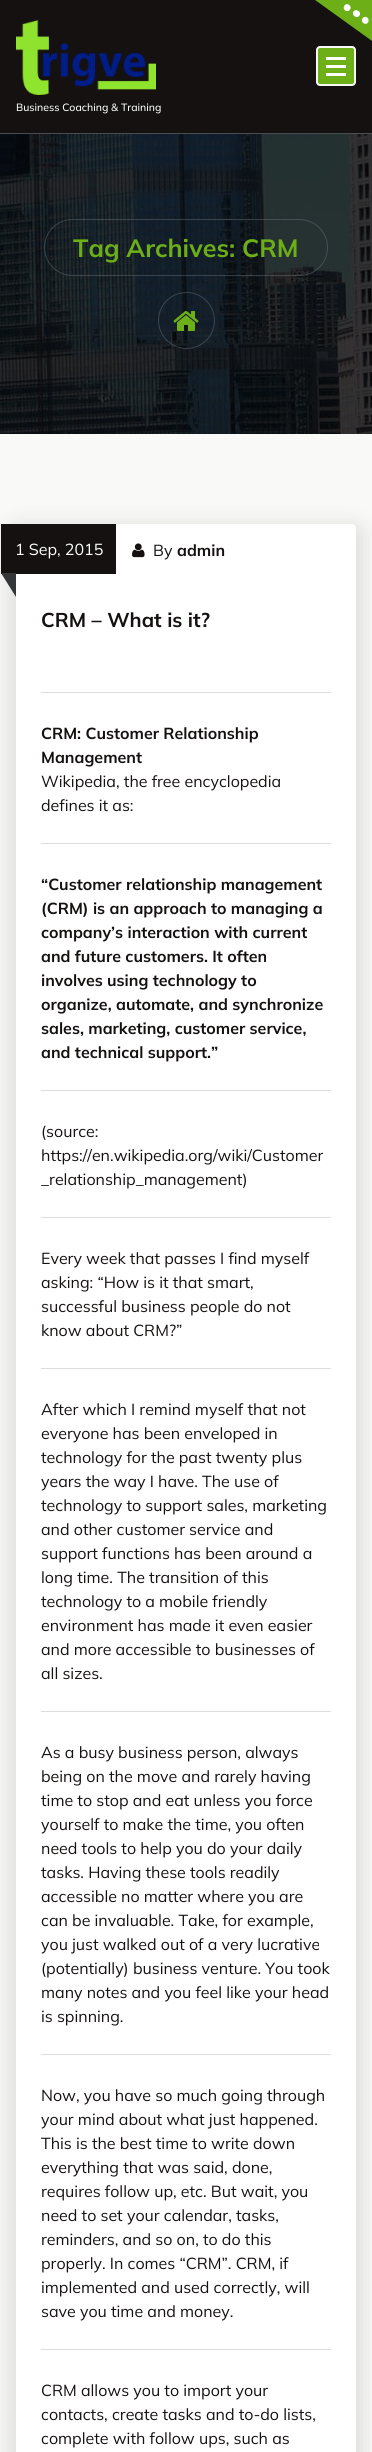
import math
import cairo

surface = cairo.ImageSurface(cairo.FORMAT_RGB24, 372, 2452)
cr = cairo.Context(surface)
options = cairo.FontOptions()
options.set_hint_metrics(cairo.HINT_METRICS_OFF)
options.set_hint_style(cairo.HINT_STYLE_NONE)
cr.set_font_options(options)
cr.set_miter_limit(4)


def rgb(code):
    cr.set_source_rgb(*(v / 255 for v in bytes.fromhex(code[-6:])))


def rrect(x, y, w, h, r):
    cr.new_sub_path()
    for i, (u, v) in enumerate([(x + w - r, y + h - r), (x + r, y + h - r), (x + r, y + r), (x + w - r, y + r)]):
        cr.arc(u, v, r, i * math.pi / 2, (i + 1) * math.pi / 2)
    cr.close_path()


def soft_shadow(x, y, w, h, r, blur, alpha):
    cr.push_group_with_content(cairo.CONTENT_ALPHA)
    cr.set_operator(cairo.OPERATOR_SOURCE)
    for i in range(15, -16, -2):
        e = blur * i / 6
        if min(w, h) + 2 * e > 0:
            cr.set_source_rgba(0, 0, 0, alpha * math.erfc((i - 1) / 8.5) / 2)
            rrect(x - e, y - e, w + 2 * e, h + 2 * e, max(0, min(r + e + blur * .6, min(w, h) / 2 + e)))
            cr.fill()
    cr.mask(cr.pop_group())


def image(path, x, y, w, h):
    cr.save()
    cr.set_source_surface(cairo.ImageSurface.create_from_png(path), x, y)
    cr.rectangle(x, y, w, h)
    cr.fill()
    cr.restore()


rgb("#f9faf7")
cr.paint()
rgb("#151111")
cr.rectangle(0, 0, 372, 133)
cr.fill()
rgb("#494d52")
cr.rectangle(0, 133, 372, 1)
cr.fill()
rgb("#6caf17")
cr.new_path()
cr.move_to(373, -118)
cr.line_to(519, -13)
cr.line_to(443, 92)
cr.line_to(297, -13)
cr.close_path()
cr.fill()
cr.new_path()
cr.move_to(330, 10)
cr.line_to(345, -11)
cr.line_to(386, 18)
cr.line_to(371, 39)
cr.close_path()
cr.fill()
rgb("#ffffff")
cr.new_path()
cr.move_to(353.5, 11.5)
cr.curve_to(356, 8, 362, 12, 359.5, 15.5)
cr.curve_to(357, 19.5, 351, 15, 353.5, 11.5)
cr.close_path()
cr.move_to(344.5, 5.5)
cr.curve_to(347, 2, 352.5, 6, 350, 9.5)
cr.curve_to(347.5, 13.5, 341.5, 9.5, 344.5, 5.5)
cr.close_path()
cr.move_to(362.5, 18.5)
cr.curve_to(365, 14.5, 370.5, 18.5, 368, 22.5)
cr.curve_to(365.5, 26, 360, 22, 362.5, 18.5)
cr.close_path()
cr.fill()
rgb("#6caf17")
rrect(317, 47, 38, 38, 3)
cr.fill_preserve()
rgb("#f9faf7")
cr.stroke()
for x, y, w, h, color in [
    (326, 57, 20, 3, "#ffffff"),
    (326, 65, 20, 3, "#ffffff"),
    (326, 73, 20, 3, "#ffffff"),
]:
    rgb(color)
    cr.rectangle(x, y, w, h)
    cr.fill()
image("img/1.png", 16, 20, 140, 75)
image("img/2.png", 0, 134, 372, 300)
rrect(44.5, 219.5, 283, 56, 28)
cr.set_source_rgba(0.424, 0.459, 0.49, 0.45)
cr.set_line_width(1)
cr.stroke()
cr.arc(186.5, 320.5, 28, 0, 2 * math.pi)
cr.stroke()
image("img/3.png", 173, 311, 26, 20)
rgb("#000000")
soft_shadow(7, 523, 358, 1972, 13, 10, 0.1)
rgb("#ffffff")
rrect(16, 524, 340, 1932, 4)
cr.fill()
rgb("#151111")
cr.rectangle(1, 524, 115, 50)
cr.fill()
rgb("#353638")
cr.new_path()
cr.move_to(1, 573)
cr.line_to(16, 573)
cr.line_to(16, 597)
cr.close_path()
cr.fill()
image("img/4.png", 132, 543, 13, 15)
for x, y, w, h, color in [
    (41, 692, 290, 1, "#dddddd"),
    (41, 843, 290, 1, "#dddddd"),
    (41, 1090, 290, 1, "#dddddd"),
    (41, 1217, 290, 1, "#dddddd"),
    (41, 1368, 290, 1, "#dddddd"),
    (41, 1711, 290, 1, "#dddddd"),
    (41, 2054, 290, 1, "#dddddd"),
    (41, 2349, 290, 1, "#dddddd"),
]:
    rgb(color)
    cr.rectangle(x, y, w, h)
    cr.fill()
cr.select_font_face("Mulish Medium")
cr.set_font_size(10.5)
rgb("#ffffff")
cr.move_to(16, 111)
cr.show_text("Business Coaching & Training")
cr.select_font_face("Mulish", cairo.FONT_SLANT_NORMAL, cairo.FONT_WEIGHT_BOLD)
cr.set_font_size(25)
rgb("#6caf17")
cr.move_to(73, 257)
cr.show_text("Tag Archives: CRM")
cr.select_font_face("Mulish")
cr.set_font_size(16)
rgb("#ffffff")
cr.move_to(15, 555)
cr.show_text("1 Sep, 2015")
rgb("#151111")
cr.move_to(153, 556)
cr.show_text("By")
cr.select_font_face("Mulish", cairo.FONT_SLANT_NORMAL, cairo.FONT_WEIGHT_BOLD)
cr.move_to(177, 556)
cr.show_text("admin")
cr.set_font_size(20)
cr.move_to(41, 627)
cr.show_text("CRM – What is it?")
cr.set_font_size(16)
cr.move_to(41, 739)
cr.show_text("CRM: Customer Relationship")
cr.move_to(41, 763)
cr.show_text("Management")
cr.select_font_face("Mulish")
cr.move_to(41, 787)
cr.show_text("Wikipedia, the free encyclopedia")
cr.move_to(41, 811)
cr.show_text("defines it as:")
cr.select_font_face("Mulish", cairo.FONT_SLANT_NORMAL, cairo.FONT_WEIGHT_BOLD)
for x, y, s in [
    (41, 890, "“Customer relationship management"),
    (41, 914, "(CRM) is an approach to managing a"),
    (41, 938, "company’s interaction with current"),
    (41, 962, "and future customers. It often"),
    (41, 986, "involves using technology to"),
    (41, 1010, "organize, automate, and synchronize"),
    (41, 1034, "sales, marketing, customer service,"),
    (41, 1058, "and technical support.”"),
]:
    cr.move_to(x, y)
    cr.show_text(s)
cr.select_font_face("Mulish")
for x, y, s in [
    (41, 1137, "(source:"),
    (41, 1161, "https://en.wikipedia.org/wiki/Customer"),
    (41, 1185, "_relationship_management)"),
    (41, 1264, "Every week that passes I find myself"),
    (41, 1288, "asking: “How is it that smart,"),
    (41, 1312, "successful business people do not"),
    (41, 1336, "know about CRM?”"),
    (41, 1415, "After which I remind myself that not"),
    (41, 1439, "everyone has been enveloped in"),
    (41, 1463, "technology for the past twenty plus"),
    (41, 1487, "years the way I have. The use of"),
    (41, 1511, "technology to support sales, marketing"),
    (41, 1535, "and other customer service and"),
    (41, 1559, "support functions has been around a"),
    (41, 1583, "long time. The transition of this"),
    (41, 1607, "technology to a mobile friendly"),
    (41, 1631, "environment has made it even easier"),
    (41, 1655, "and more accessible to businesses of"),
    (41, 1679, "all sizes."),
    (41, 1758, "As a busy business person, always"),
    (41, 1782, "being on the move and rarely having"),
    (41, 1806, "time to stop and eat unless you force"),
    (41, 1830, "yourself to make the time, you often"),
    (41, 1854, "need tools to help you do your daily"),
    (41, 1878, "tasks. Having these tools readily"),
    (41, 1902, "accessible no matter where you are"),
    (41, 1926, "can be invaluable. Take, for example,"),
    (41, 1950, "you just walked out of a very lucrative"),
    (41, 1974, "(potentially) business venture. You took"),
    (41, 1998, "many notes and you feel like your head"),
    (41, 2022, "is spinning."),
    (41, 2101, "Now, you have so much going through"),
    (41, 2125, "your mind about what just happened."),
    (41, 2149, "This is the best time to write down"),
    (41, 2173, "everything that was said, done,"),
    (41, 2197, "requires follow up, etc. But wait, you"),
    (41, 2221, "need to set your calendar, tasks,"),
    (41, 2245, "reminders, and so on, to do this"),
    (41, 2269, "properly. In comes “CRM”. CRM, if"),
    (41, 2293, "implemented and used correctly, will"),
    (41, 2317, "save you time and money."),
    (41, 2396, "CRM allows you to import your"),
    (41, 2420, "contacts, create tasks and to-do lists,"),
    (41, 2444, "complete with follow ups, such as"),
]:
    cr.move_to(x, y)
    cr.show_text(s)
surface.write_to_png("page.png")
